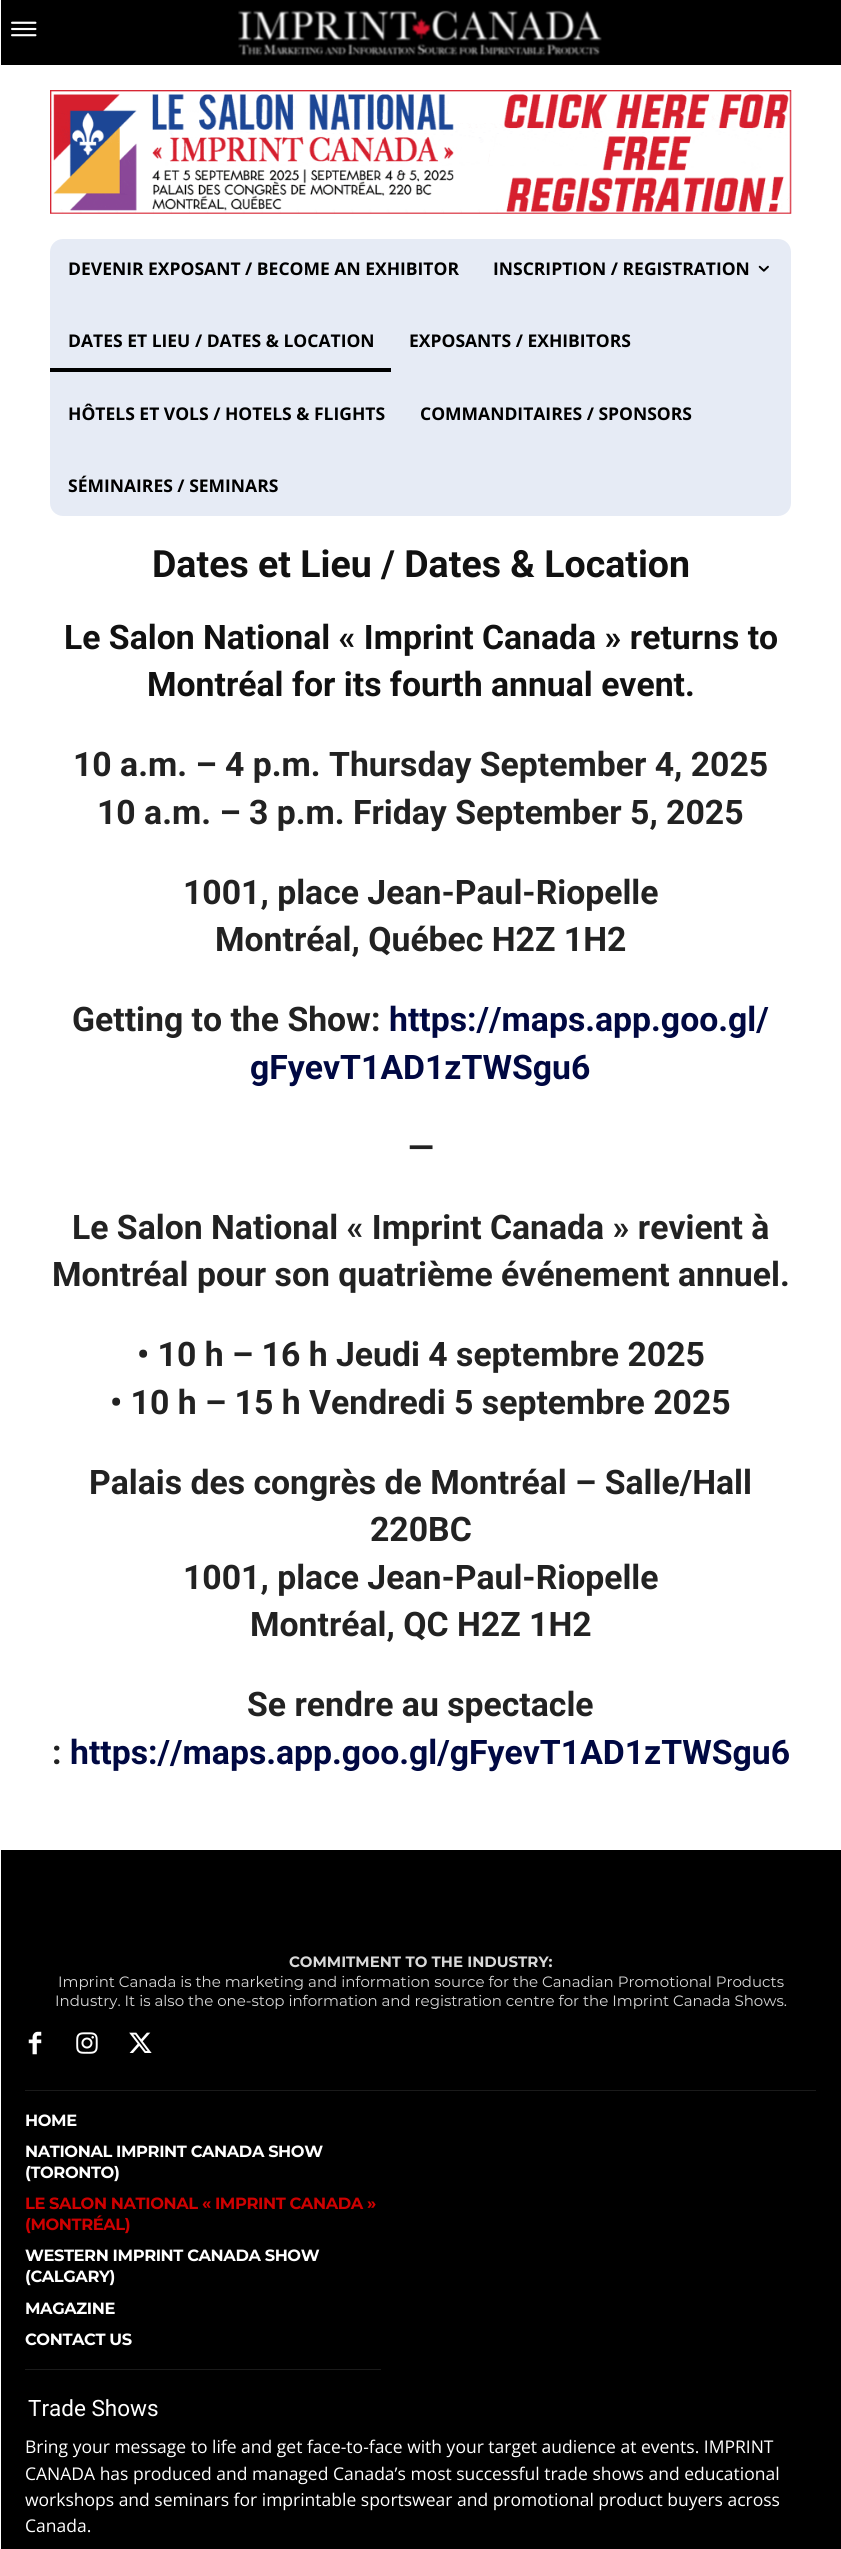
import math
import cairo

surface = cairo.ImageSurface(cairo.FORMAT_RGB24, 841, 2549)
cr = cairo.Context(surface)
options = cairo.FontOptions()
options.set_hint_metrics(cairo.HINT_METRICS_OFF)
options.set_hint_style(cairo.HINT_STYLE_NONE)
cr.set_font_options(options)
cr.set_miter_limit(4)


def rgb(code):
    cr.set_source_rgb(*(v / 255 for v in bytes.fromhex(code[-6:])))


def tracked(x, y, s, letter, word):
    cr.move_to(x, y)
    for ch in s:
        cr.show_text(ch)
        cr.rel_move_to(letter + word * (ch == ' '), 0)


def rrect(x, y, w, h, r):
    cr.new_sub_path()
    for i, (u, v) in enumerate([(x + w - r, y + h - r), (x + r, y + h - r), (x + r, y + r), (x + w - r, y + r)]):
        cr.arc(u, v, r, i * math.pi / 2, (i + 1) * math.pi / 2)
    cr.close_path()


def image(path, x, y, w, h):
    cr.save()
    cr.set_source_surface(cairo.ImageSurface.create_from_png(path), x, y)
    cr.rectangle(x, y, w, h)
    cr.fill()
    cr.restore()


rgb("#ffffff")
cr.paint()
rgb("#000000")
cr.rectangle(1, 0, 840, 65)
cr.fill()
image("img/1.png", 11, 21, 26, 16)
image("img/2.png", 238, 10, 364, 46)
image("img/3.png", 50, 90, 742, 124)
rgb("#e6ebf5")
rrect(50, 239, 741, 277, 13)
cr.fill()
image("img/4.png", 758, 265, 11, 7)
for x, y, w, h, color in [
    (50, 368, 341, 4, "#000000"),
    (1, 1850, 840, 699, "#000000"),
    (25, 2090, 791, 1, "#1a1a1a"),
]:
    rgb(color)
    cr.rectangle(x, y, w, h)
    cr.fill()
image("img/5.png", 28, 2031, 14, 24)
image("img/6.png", 76, 2032, 22, 22)
image("img/7.png", 129, 2032, 23, 21)
cr.rectangle(25, 2369, 356, 1)
cr.fill()
cr.select_font_face("Open Sans", cairo.FONT_SLANT_NORMAL, cairo.FONT_WEIGHT_BOLD)
cr.set_font_size(17.5)
rgb("#000000")
for x, y, s in [
    (68, 275, "DEVENIR EXPOSANT / BECOME AN EXHIBITOR"),
    (493, 275, "INSCRIPTION / REGISTRATION"),
    (68, 347, "DATES ET LIEU / DATES & LOCATION"),
    (409, 347, "EXPOSANTS / EXHIBITORS"),
    (68, 420, "HÔTELS ET VOLS / HOTELS & FLIGHTS"),
    (420, 420, "COMMANDITAIRES / SPONSORS"),
    (68, 492, "SÉMINAIRES / SEMINARS"),
]:
    cr.move_to(x, y)
    cr.show_text(s)
cr.select_font_face("Roboto", cairo.FONT_SLANT_NORMAL, cairo.FONT_WEIGHT_BOLD)
cr.set_font_size(37.5)
rgb("#111111")
cr.move_to(152, 577)
cr.show_text("Dates et Lieu / Dates & Location")
cr.set_font_size(33.75)
cr.move_to(64, 649)
cr.show_text("Le Salon National « Imprint Canada » returns to")
cr.move_to(147, 696)
cr.show_text("Montréal for its fourth annual event.")
rgb("#222222")
for x, y, s in [
    (73, 776, "10 a.m. – 4 p.m. Thursday September 4, 2025"),
    (97, 824, "10 a.m. – 3 p.m. Friday September 5, 2025"),
    (183, 904, "1001, place Jean-Paul-Riopelle"),
    (215, 951, "Montréal, Québec H2Z 1H2"),
    (72, 1031, "Getting to the Show:"),
]:
    cr.move_to(x, y)
    cr.show_text(s)
rgb("#000842")
cr.move_to(389, 1031)
cr.show_text("https://maps.app.goo.gl/")
cr.move_to(250, 1079)
cr.show_text("gFyevT1AD1zTWSgu6")
rgb("#222222")
for x, y, s in [
    (408, 1159, "—"),
    (72, 1239, "Le Salon National « Imprint Canada » revient à"),
    (52, 1286, "Montréal pour son quatrième événement annuel."),
    (137, 1366, "• 10 h – 16 h Jeudi 4 septembre 2025"),
    (110, 1414, "• 10 h – 15 h Vendredi 5 septembre 2025"),
    (89, 1494, "Palais des congrès de Montréal – Salle/Hall"),
    (370, 1541, "220BC"),
    (183, 1589, "1001, place Jean-Paul-Riopelle"),
    (250, 1636, "Montréal, QC H2Z 1H2"),
    (247, 1716, "Se rendre au spectacle"),
    (52, 1764, ":"),
]:
    cr.move_to(x, y)
    cr.show_text(s)
rgb("#000842")
cr.move_to(70, 1764)
cr.show_text("https://maps.app.goo.gl/gFyevT1AD1zTWSgu6")
cr.select_font_face("Montserrat", cairo.FONT_SLANT_NORMAL, cairo.FONT_WEIGHT_BOLD)
cr.set_font_size(15)
rgb("#d8d8d8")
cr.move_to(289, 1967)
cr.show_text("COMMITMENT TO THE INDUSTRY:")
cr.select_font_face("Montserrat")
cr.move_to(58, 1987)
cr.show_text("Imprint Canada is the marketing and information source for the Canadian Promotional Products")
cr.move_to(55, 2006)
cr.show_text("Industry. It is also the one-stop information and registration centre for the Imprint Canada Shows.")
cr.select_font_face("Montserrat", cairo.FONT_SLANT_NORMAL, cairo.FONT_WEIGHT_BOLD)
cr.set_font_size(16.25)
rgb("#ffffff")
for x, y, s in [
    (25, 2126, "HOME"),
    (25, 2157, "NATIONAL IMPRINT CANADA SHOW"),
    (25, 2178, "(TORONTO)"),
]:
    tracked(x, y, s, -0.4, 0)
rgb("#ce0000")
tracked(25, 2209, "LE SALON NATIONAL « IMPRINT CANADA »", -0.4, 0)
tracked(25, 2230, "(MONTRÉAL)", -0.4, 0)
rgb("#ffffff")
for x, y, s in [
    (25, 2261, "WESTERN IMPRINT CANADA SHOW"),
    (25, 2282, "(CALGARY)"),
    (25, 2314, "MAGAZINE"),
    (25, 2345, "CONTACT US"),
]:
    tracked(x, y, s, -0.4, 0)
cr.select_font_face("Roboto")
cr.set_font_size(22.5)
cr.move_to(28, 2416)
cr.show_text("Trade Shows")
cr.select_font_face("Open Sans")
cr.set_font_size(17.5)
for x, y, s in [
    (25, 2453, "Bring your message to life and get face-to-face with your target audience at events. IMPRINT"),
    (25, 2480, "CANADA has produced and managed Canada’s most successful trade shows and educational"),
    (25, 2506, "workshops and seminars for imprintable sportswear and promotional product buyers across"),
    (25, 2532, "Canada."),
]:
    cr.move_to(x, y)
    cr.show_text(s)
surface.write_to_png("page.png")
